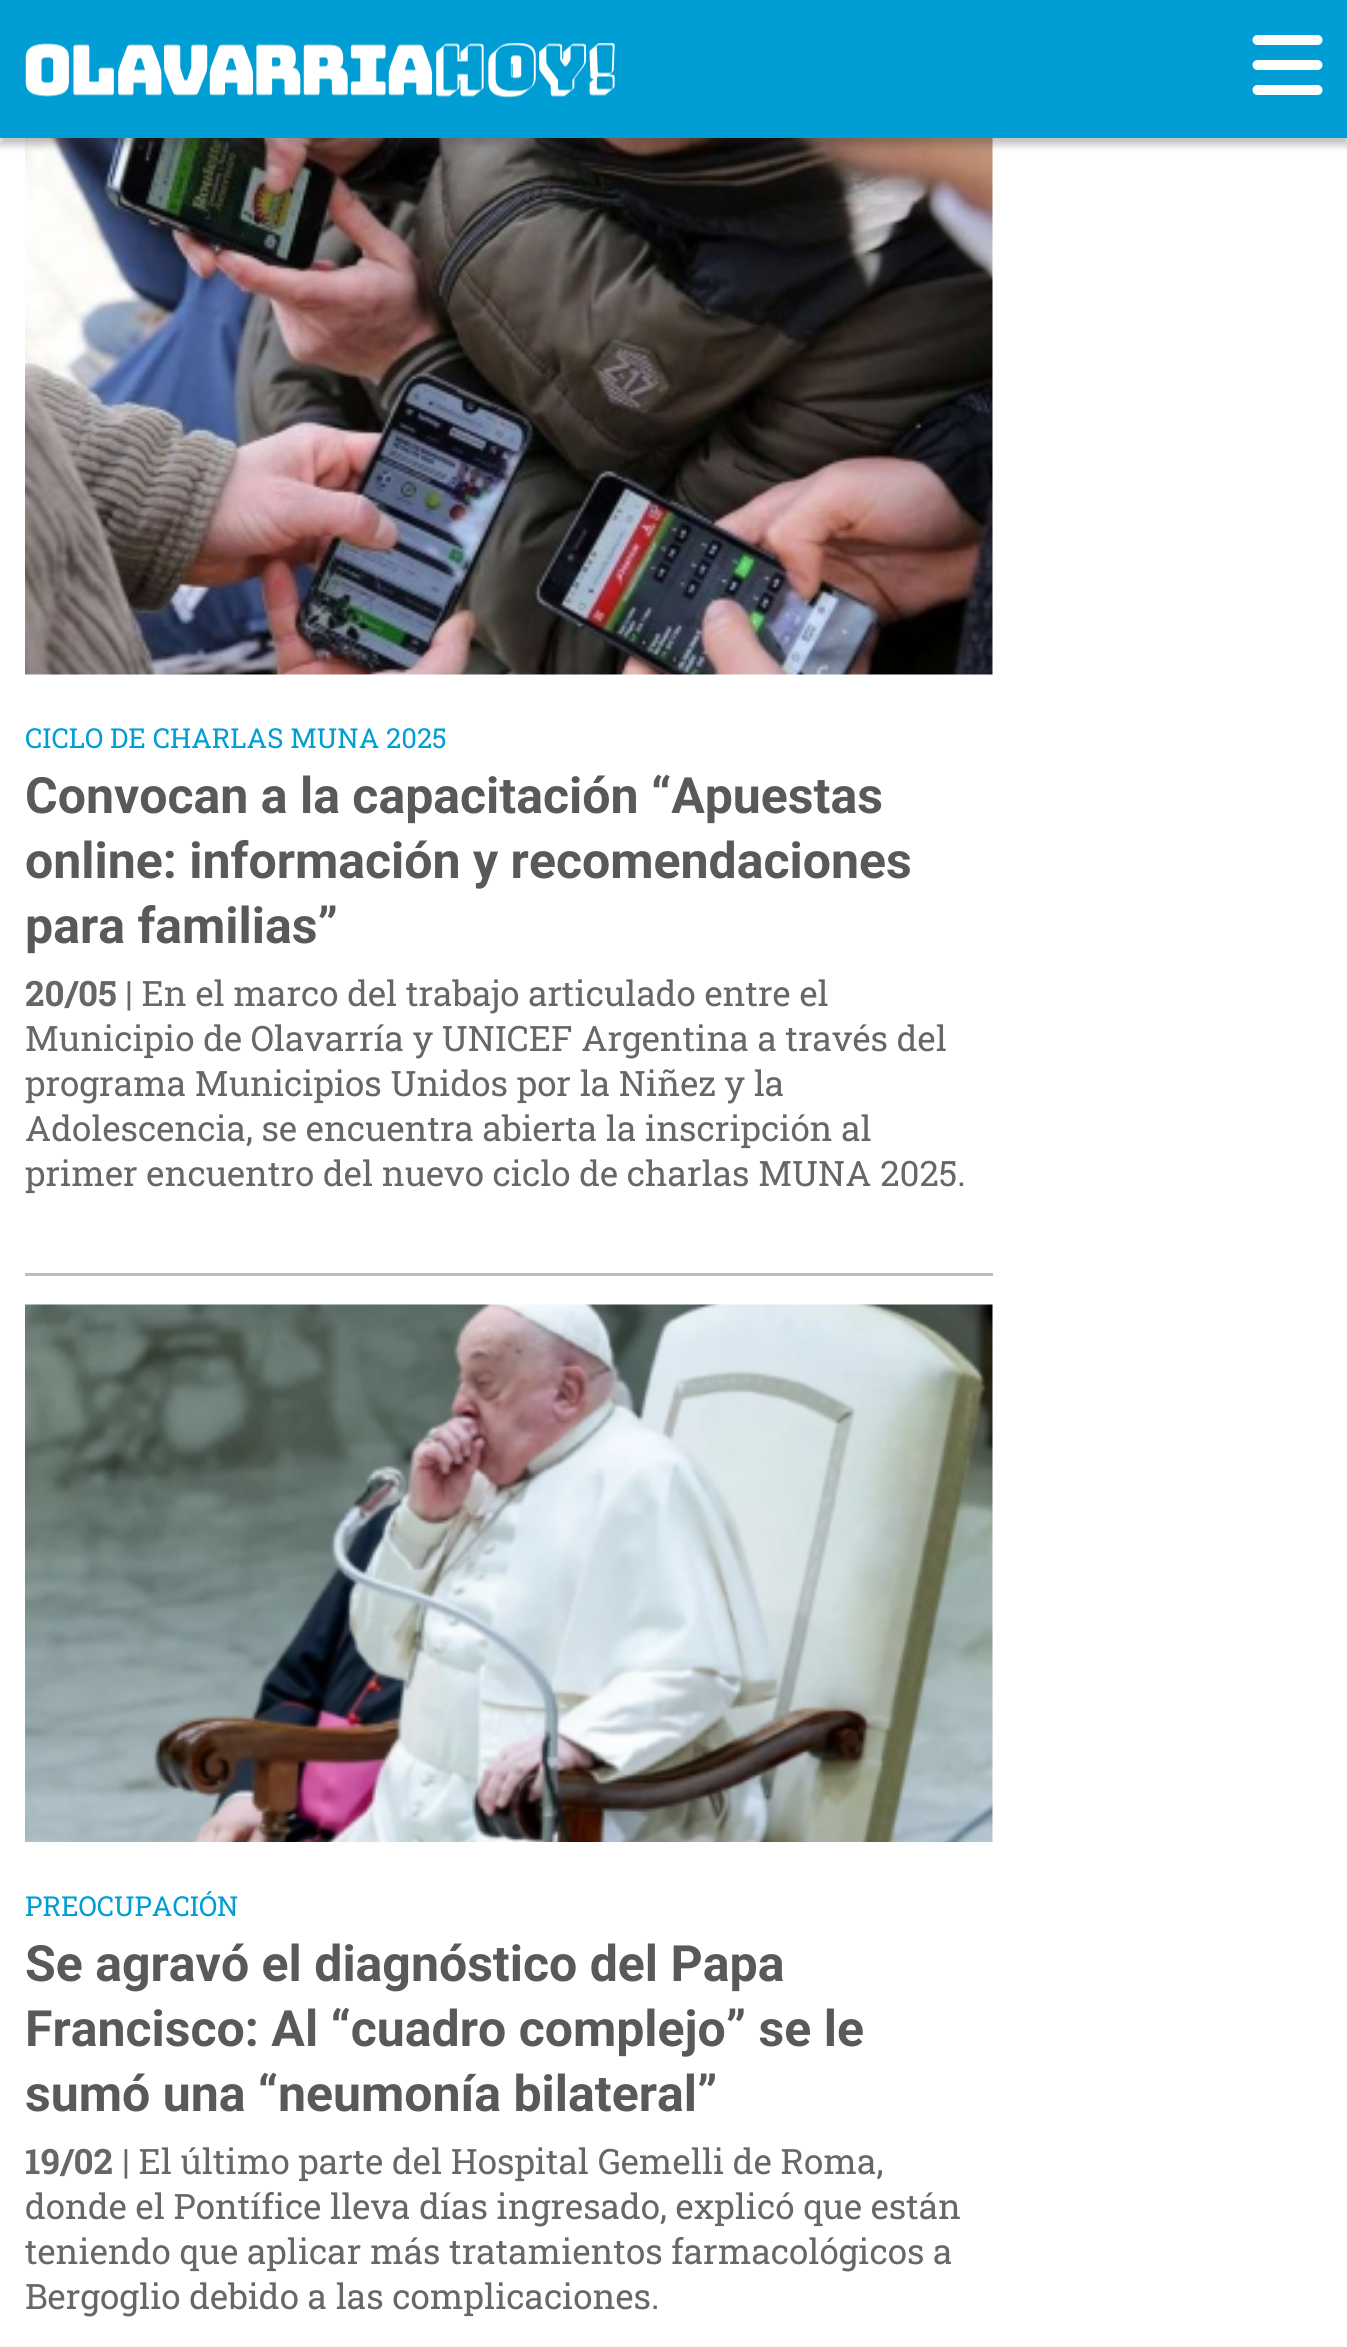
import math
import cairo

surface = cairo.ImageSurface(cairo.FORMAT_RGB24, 1347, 2347)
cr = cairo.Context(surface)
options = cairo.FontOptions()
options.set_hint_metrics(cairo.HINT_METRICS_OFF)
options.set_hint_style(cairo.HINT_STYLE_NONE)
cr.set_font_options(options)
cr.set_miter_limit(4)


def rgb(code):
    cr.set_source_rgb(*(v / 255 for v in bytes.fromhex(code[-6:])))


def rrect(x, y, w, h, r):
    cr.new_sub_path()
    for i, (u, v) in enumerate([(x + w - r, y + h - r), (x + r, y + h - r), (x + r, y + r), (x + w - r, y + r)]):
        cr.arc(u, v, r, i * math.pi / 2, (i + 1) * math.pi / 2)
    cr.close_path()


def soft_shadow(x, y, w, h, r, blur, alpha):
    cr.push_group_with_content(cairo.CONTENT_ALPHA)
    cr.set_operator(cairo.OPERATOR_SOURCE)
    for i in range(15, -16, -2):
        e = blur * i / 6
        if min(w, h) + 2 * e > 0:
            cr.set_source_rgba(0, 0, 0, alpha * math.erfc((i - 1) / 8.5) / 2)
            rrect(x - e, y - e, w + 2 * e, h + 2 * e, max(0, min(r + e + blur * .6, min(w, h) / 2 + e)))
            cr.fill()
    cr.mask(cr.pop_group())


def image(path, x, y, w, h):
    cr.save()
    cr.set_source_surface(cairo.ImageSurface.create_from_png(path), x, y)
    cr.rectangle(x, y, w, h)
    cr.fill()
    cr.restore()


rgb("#ffffff")
cr.paint()
image("img/3.png", 25, 138, 968, 537)
rgb("#323232")
soft_shadow(0, 8, 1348, 137, 0, 4, 0.3)
rgb("#009ed4")
cr.rectangle(0, 0, 1347, 138)
cr.fill()
image("img/1.png", 25, 43, 590, 55)
image("img/2.png", 1252, 35, 71, 60)
rgb("#bbbdbf")
cr.rectangle(25, 1273, 968, 3)
cr.fill()
image("img/4.png", 25, 1304, 968, 538)
cr.select_font_face("Roboto Slab")
cr.set_font_size(27.5)
rgb("#009ed4")
cr.move_to(25, 748)
cr.show_text("CICLO DE CHARLAS MUNA 2025")
cr.select_font_face("Roboto", cairo.FONT_SLANT_NORMAL, cairo.FONT_WEIGHT_BOLD)
cr.set_font_size(50)
rgb("#58595b")
for x, y, s in [
    (25, 813, "Convocan a la capacitación “Apuestas"),
    (25, 878, "online: información y recomendaciones"),
    (25, 943, "para familias”"),
]:
    cr.move_to(x, y)
    cr.show_text(s)
cr.select_font_face("Roboto Slab", cairo.FONT_SLANT_NORMAL, cairo.FONT_WEIGHT_BOLD)
cr.set_font_size(35)
rgb("#676767")
cr.move_to(25, 1006)
cr.show_text("20/05")
cr.select_font_face("Roboto Slab")
for x, y, s in [
    (125, 1006, "| En el marco del trabajo articulado entre el"),
    (25, 1051, "Municipio de Olavarría y UNICEF Argentina a través del"),
    (25, 1096, "programa Municipios Unidos por la Niñez y la"),
    (25, 1141, "Adolescencia, se encuentra abierta la inscripción al"),
    (25, 1186, "primer encuentro del nuevo ciclo de charlas MUNA 2025."),
]:
    cr.move_to(x, y)
    cr.show_text(s)
cr.set_font_size(27.5)
rgb("#009ed4")
cr.move_to(25, 1916)
cr.show_text("PREOCUPACIÓN")
cr.select_font_face("Roboto", cairo.FONT_SLANT_NORMAL, cairo.FONT_WEIGHT_BOLD)
cr.set_font_size(50)
rgb("#58595b")
for x, y, s in [
    (25, 1981, "Se agravó el diagnóstico del Papa"),
    (25, 2046, "Francisco: Al “cuadro complejo” se le"),
    (25, 2111, "sumó una “neumonía bilateral”"),
]:
    cr.move_to(x, y)
    cr.show_text(s)
cr.select_font_face("Roboto Slab", cairo.FONT_SLANT_NORMAL, cairo.FONT_WEIGHT_BOLD)
cr.set_font_size(35)
rgb("#676767")
cr.move_to(25, 2174)
cr.show_text("19/02")
cr.select_font_face("Roboto Slab")
for x, y, s in [
    (122, 2174, "| El último parte del Hospital Gemelli de Roma,"),
    (25, 2219, "donde el Pontífice lleva días ingresado, explicó que están"),
    (25, 2264, "teniendo que aplicar más tratamientos farmacológicos a"),
    (25, 2309, "Bergoglio debido a las complicaciones."),
]:
    cr.move_to(x, y)
    cr.show_text(s)
surface.write_to_png("page.png")
